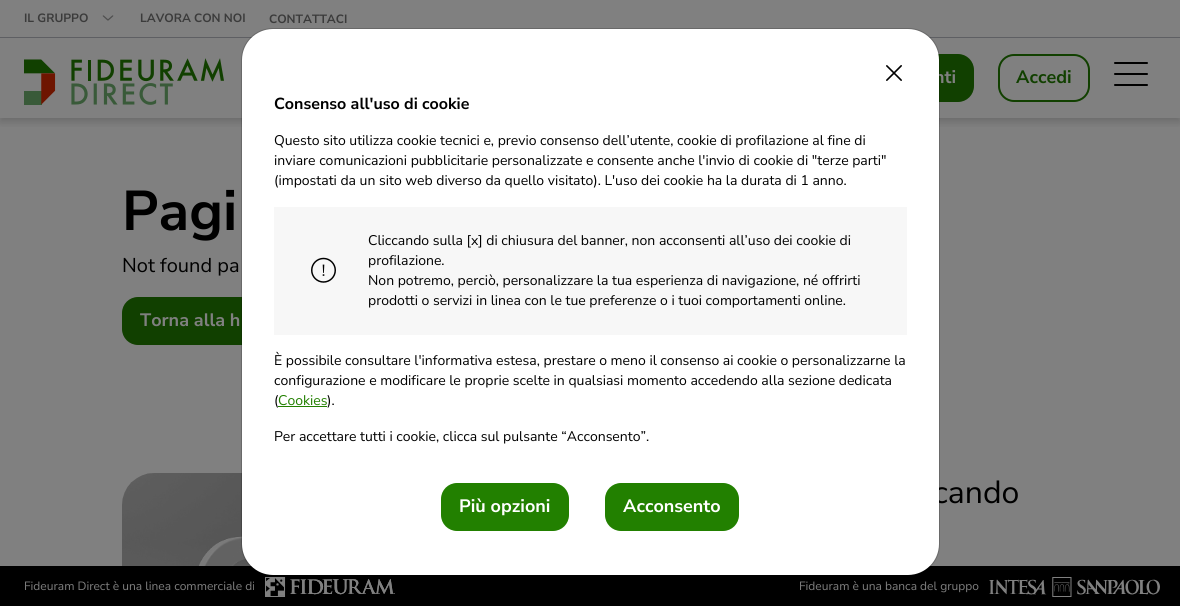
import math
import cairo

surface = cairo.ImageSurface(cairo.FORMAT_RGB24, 1180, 606)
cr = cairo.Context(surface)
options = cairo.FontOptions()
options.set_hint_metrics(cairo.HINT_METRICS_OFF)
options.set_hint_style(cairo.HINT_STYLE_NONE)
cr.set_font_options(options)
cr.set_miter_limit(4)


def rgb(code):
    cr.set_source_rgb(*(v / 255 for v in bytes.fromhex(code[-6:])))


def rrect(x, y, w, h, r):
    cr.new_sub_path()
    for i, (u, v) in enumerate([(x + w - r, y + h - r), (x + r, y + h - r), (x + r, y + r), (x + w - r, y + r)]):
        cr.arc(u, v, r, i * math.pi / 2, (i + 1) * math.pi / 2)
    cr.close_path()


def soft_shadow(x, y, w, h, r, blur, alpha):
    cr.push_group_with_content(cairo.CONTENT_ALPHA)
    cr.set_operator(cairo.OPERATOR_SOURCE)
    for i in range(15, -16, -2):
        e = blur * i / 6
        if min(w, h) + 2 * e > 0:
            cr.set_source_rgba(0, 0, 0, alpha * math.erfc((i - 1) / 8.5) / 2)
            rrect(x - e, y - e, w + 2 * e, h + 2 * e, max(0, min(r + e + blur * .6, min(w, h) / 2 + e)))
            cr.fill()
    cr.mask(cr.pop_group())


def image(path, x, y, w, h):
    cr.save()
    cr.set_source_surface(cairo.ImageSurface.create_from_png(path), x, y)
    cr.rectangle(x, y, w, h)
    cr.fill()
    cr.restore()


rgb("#808080")
cr.paint()
cr.save()
cr.rectangle(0, 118, 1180, 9)
cr.clip()
rgb("#000000")
soft_shadow(0, 42, 1180, 80, 0, 4, 0.16)
cr.restore()
rgb("#5e5f63")
cr.rectangle(0, 37, 1180, 1)
cr.fill()
image("img/1.png", 102, 15, 12, 6)
image("img/2.png", 24, 58, 200, 47)
rgb("#114000")
rrect(832, 55, 141, 46, 15)
cr.fill_preserve()
cr.stroke()
rrect(999, 55, 90, 46, 15)
cr.stroke()
image("img/3.png", 1114, 62, 34, 24)
rrect(123, 298, 216, 46, 15)
cr.fill_preserve()
cr.stroke()
image("img/4.png", 122, 473, 130, 93)
rgb("#000000")
cr.rectangle(0, 566, 1180, 40)
cr.fill()
image("img/5.png", 265, 577, 130, 20)
image("img/6.png", 989, 577, 171, 20)
cr.select_font_face("Nunito Sans", cairo.FONT_SLANT_NORMAL, cairo.FONT_WEIGHT_BOLD)
cr.set_font_size(12)
rgb("#3b3b3b")
for x, y, s in [
    (24, 22, "IL GRUPPO"),
    (140, 22, "LAVORA CON NOI"),
    (269, 23, "CONTATTACI"),
]:
    cr.move_to(x, y)
    cr.show_text(s)
cr.set_font_size(18)
rgb("#808080")
cr.move_to(934, 83)
cr.show_text("nti")
rgb("#114000")
cr.move_to(1016, 83)
cr.show_text("Accedi")
cr.set_font_size(56)
rgb("#000000")
cr.move_to(122, 230)
cr.show_text("Pagi")
cr.select_font_face("Nunito Sans")
cr.set_font_size(20)
cr.move_to(122, 272)
cr.show_text("Not found pa")
cr.select_font_face("Nunito Sans", cairo.FONT_SLANT_NORMAL, cairo.FONT_WEIGHT_BOLD)
cr.set_font_size(18)
rgb("#808080")
cr.move_to(140, 326)
cr.show_text("Torna alla h")
cr.select_font_face("Nunito Sans")
cr.set_font_size(32)
rgb("#000000")
cr.move_to(933, 503)
cr.show_text("cando")
cr.set_font_size(12)
rgb("#808080")
cr.move_to(24, 590)
cr.show_text("Fideuram Direct è una linea commerciale di")
cr.move_to(799, 590)
cr.show_text("Fideuram è una banca del gruppo")
rgb("#ffffff")
rrect(242, 29, 697, 546, 31)
cr.fill()
rrect(241.5, 28.5, 698, 547, 31.5)
cr.set_source_rgba(0, 0, 0, 0.18)
cr.set_line_width(1)
cr.stroke()
image("img/7.png", 886, 65, 16, 16)
cr.select_font_face("Nunito Sans", cairo.FONT_SLANT_NORMAL, cairo.FONT_WEIGHT_BOLD)
cr.set_font_size(16)
rgb("#000000")
cr.move_to(274, 109)
cr.show_text("Consenso all'uso di cookie")
cr.select_font_face("Nunito Sans")
cr.set_font_size(14)
for x, y, s in [
    (274, 145, "Questo sito utilizza cookie tecnici e, previo consenso dell’utente, cookie di profilazione al fine di"),
    (274, 165, "inviare comunicazioni pubblicitarie personalizzate e consente anche l'invio di cookie di \"terze parti\""),
    (274, 185, "(impostati da un sito web diverso da quello visitato). L'uso dei cookie ha la durata di 1 anno."),
]:
    cr.move_to(x, y)
    cr.show_text(s)
rgb("#f7f7f7")
cr.rectangle(274, 207, 633, 128)
cr.fill()
image("img/8.png", 311, 257, 25, 26)
rgb("#000000")
for x, y, s in [
    (368, 245, "Cliccando sulla [x] di chiusura del banner, non acconsenti all’uso dei cookie di"),
    (368, 265, "profilazione."),
    (368, 285, "Non potremo, perciò, personalizzare la tua esperienza di navigazione, né offrirti"),
    (368, 305, "prodotti o servizi in linea con le tue preferenze o i tuoi comportamenti online."),
    (274, 365, "È possibile consultare l'informativa estesa, prestare o meno il consenso ai cookie o personalizzarne la"),
    (274, 385, "configurazione e modificare le proprie scelte in qualsiasi momento accedendo alla sezione dedicata"),
    (274, 405, "("),
]:
    cr.move_to(x, y)
    cr.show_text(s)
rgb("#228000")
cr.move_to(278, 405)
cr.show_text("Cookies")
cr.rectangle(278, 406, 49, 1)
cr.fill()
rgb("#000000")
cr.move_to(327, 405)
cr.show_text(").")
cr.move_to(274, 441)
cr.show_text("Per accettare tutti i cookie, clicca sul pulsante “Acconsento”.")
rgb("#228000")
rrect(442, 484, 126, 46, 15)
cr.fill_preserve()
cr.set_line_width(2)
cr.stroke()
cr.select_font_face("Nunito Sans", cairo.FONT_SLANT_NORMAL, cairo.FONT_WEIGHT_BOLD)
cr.set_font_size(18)
rgb("#ffffff")
cr.move_to(459, 512)
cr.show_text("Più opzioni")
rgb("#228000")
rrect(606, 484, 132, 46, 15)
cr.fill_preserve()
cr.stroke()
rgb("#ffffff")
cr.move_to(623, 512)
cr.show_text("Acconsento")
surface.write_to_png("page.png")
